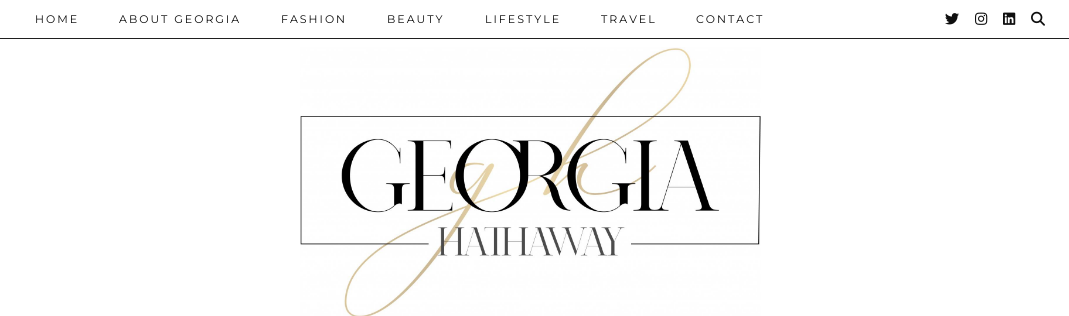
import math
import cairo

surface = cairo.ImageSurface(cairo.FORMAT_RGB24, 1069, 316)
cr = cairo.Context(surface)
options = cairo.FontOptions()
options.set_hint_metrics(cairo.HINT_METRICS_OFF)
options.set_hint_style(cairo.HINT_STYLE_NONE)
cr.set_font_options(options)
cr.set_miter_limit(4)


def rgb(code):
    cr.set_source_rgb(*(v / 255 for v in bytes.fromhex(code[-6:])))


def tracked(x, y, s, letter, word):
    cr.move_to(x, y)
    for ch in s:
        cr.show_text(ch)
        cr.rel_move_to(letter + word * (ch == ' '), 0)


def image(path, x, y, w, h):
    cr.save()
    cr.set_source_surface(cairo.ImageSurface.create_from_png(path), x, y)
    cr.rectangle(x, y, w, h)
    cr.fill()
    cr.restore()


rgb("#ffffff")
cr.paint()
rgb("#1f1f1f")
cr.rectangle(0, 38, 1069, 1)
cr.fill()
image("img/1.png", 945, 13, 14, 12)
image("img/2.png", 975, 12, 13, 13)
image("img/3.png", 1003, 12, 13, 13)
image("img/4.png", 1031, 11, 14, 15)
image("img/5.png", 300, 47, 461, 269)
cr.select_font_face("Montserrat Thin")
cr.set_font_size(11)
rgb("#0f0f0f")
for x, y, s in [
    (35, 23, "HOME"),
    (119, 23, "ABOUT GEORGIA"),
    (281, 23, "FASHION"),
    (387, 23, "BEAUTY"),
    (485, 23, "LIFESTYLE"),
    (601, 23, "TRAVEL"),
    (696, 23, "CONTACT"),
]:
    tracked(x, y, s, 2, 0)
surface.write_to_png("page.png")
